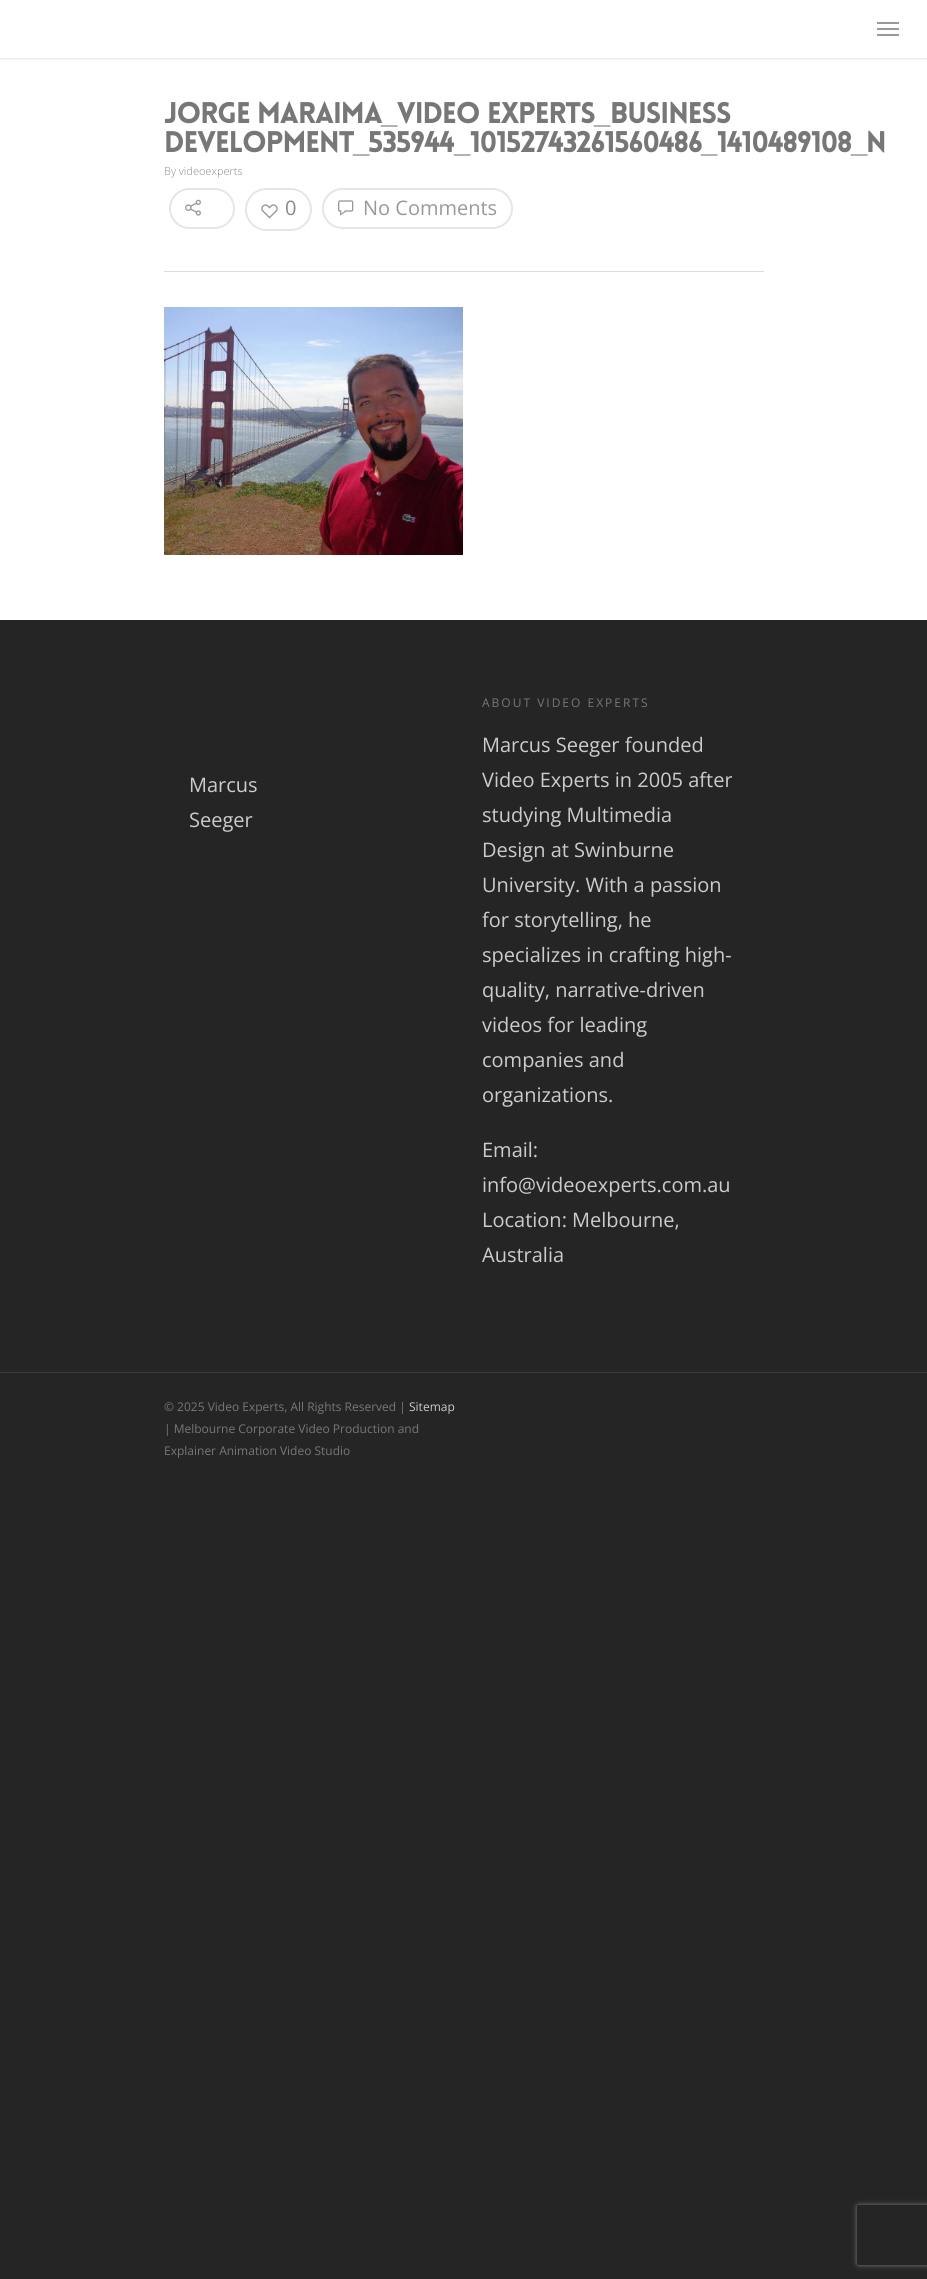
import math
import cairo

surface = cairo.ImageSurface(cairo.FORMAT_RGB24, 927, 2279)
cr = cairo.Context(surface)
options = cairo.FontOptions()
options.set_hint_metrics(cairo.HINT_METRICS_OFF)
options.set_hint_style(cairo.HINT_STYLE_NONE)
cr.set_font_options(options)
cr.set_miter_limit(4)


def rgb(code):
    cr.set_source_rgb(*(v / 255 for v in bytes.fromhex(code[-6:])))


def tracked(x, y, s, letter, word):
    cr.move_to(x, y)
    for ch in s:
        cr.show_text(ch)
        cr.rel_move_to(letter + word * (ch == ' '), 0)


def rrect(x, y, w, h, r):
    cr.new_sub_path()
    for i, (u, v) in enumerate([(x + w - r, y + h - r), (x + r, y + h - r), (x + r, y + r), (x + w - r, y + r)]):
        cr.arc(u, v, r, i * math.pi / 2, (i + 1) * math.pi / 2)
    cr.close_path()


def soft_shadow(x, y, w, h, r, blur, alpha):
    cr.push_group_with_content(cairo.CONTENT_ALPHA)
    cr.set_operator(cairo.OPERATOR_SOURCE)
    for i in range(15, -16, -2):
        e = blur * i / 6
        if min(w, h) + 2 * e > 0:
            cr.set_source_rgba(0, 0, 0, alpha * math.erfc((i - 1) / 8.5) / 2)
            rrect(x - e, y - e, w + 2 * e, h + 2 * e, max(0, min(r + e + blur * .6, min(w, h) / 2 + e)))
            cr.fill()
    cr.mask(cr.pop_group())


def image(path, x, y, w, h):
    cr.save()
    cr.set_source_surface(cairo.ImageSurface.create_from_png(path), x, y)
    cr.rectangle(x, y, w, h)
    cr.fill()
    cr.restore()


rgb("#252525")
cr.paint()
rgb("#ffffff")
cr.rectangle(0, 58, 927, 562)
cr.fill()
rgb("#000000")
soft_shadow(0, 0, 927, 58, 0, 1.5, 0.22)
for x, y, w, h, color in [
    (0, 0, 927, 58, "#ffffff"),
    (877, 22, 22, 2, "#999999"),
    (877, 34, 22, 2, "#999999"),
    (877, 28, 22, 2, "#999999"),
    (164, 271, 600, 1, "#dddddd"),
]:
    rgb(color)
    cr.rectangle(x, y, w, h)
    cr.fill()
rrect(170, 189, 64, 39, 19.5)
rgb("#e6e6e6")
cr.stroke()
image("img/1.png", 185, 199, 16, 17)
rrect(246, 189, 65, 41, 20.5)
cr.stroke()
image("img/2.png", 261, 204, 17, 15)
rrect(323, 189, 189, 39, 19.5)
cr.stroke()
image("img/3.png", 338, 200, 16, 16)
image("img/4.png", 164, 307, 299, 248)
rgb("#3b3b3b")
cr.rectangle(0, 1372, 927, 1)
cr.fill()
cr.save()
cr.set_fill_rule(cairo.FILL_RULE_EVEN_ODD)
cr.new_path()
cr.move_to(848, 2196)
cr.line_to(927, 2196)
cr.line_to(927, 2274)
cr.line_to(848, 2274)
cr.close_path()
cr.move_to(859, 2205)
cr.line_to(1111, 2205)
cr.curve_to(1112, 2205, 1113, 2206, 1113, 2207)
cr.line_to(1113, 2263)
cr.curve_to(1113, 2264, 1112, 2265, 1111, 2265)
cr.line_to(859, 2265)
cr.curve_to(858, 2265, 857, 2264, 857, 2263)
cr.line_to(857, 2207)
cr.curve_to(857, 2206, 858, 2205, 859, 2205)
cr.close_path()
cr.clip()
rgb("#808080")
soft_shadow(857, 2205, 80, 60, 2, 2.5, 1)
cr.restore()
cr.select_font_face("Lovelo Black")
cr.set_font_size(29.25)
rgb("#777777")
for x, y, s in [
    (164, 123, "Jorge Maraima"),
    (397, 123, "Video Experts"),
    (610, 123, "Business"),
]:
    tracked(x, y, s, -1, 0)
cr.select_font_face("Liberation Sans", cairo.FONT_SLANT_NORMAL, cairo.FONT_WEIGHT_BOLD)
tracked(381, 123, "_", -1, 0)
tracked(594, 123, "_", -1, 0)
cr.select_font_face("Lovelo Black")
for x, y, s in [
    (164, 152, "Development"),
    (368, 152, "535944"),
    (470, 152, "10152743261560486"),
    (717, 152, "1410489108"),
    (866, 152, "n"),
]:
    tracked(x, y, s, -1, 0)
cr.select_font_face("Liberation Sans", cairo.FONT_SLANT_NORMAL, cairo.FONT_WEIGHT_BOLD)
for x, y, s in [
    (353, 152, "_"),
    (454, 152, "_"),
    (701, 152, "_"),
    (851, 152, "_"),
]:
    tracked(x, y, s, -1, 0)
cr.select_font_face("Open Sans Light")
cr.set_font_size(11)
rgb("#888888")
cr.move_to(164, 175)
cr.show_text("By videoexperts")
cr.select_font_face("Open Sans")
cr.set_font_size(20)
cr.move_to(285, 215)
cr.show_text("0")
rgb("#999999")
cr.move_to(363, 215)
cr.show_text("No Comments")
rgb("#cccccc")
cr.move_to(189, 792)
cr.show_text("Marcus")
cr.move_to(189, 827)
cr.show_text("Seeger")
cr.set_font_size(12)
rgb("#777777")
tracked(482, 707, "ABOUT VIDEO EXPERTS", 2, 0)
cr.set_font_size(20)
rgb("#cccccc")
for x, y, s in [
    (482, 752, "Marcus Seeger founded"),
    (482, 787, "Video Experts in 2005 after"),
    (482, 822, "studying Multimedia"),
    (482, 857, "Design at Swinburne"),
    (482, 892, "University. With a passion"),
    (482, 927, "for storytelling, he"),
    (482, 962, "specializes in crafting high-"),
    (482, 997, "quality, narrative-driven"),
    (482, 1032, "videos for leading"),
    (482, 1067, "companies and"),
    (482, 1102, "organizations."),
    (482, 1157, "Email:"),
    (482, 1192, "info@videoexperts.com.au"),
    (482, 1227, "Location: Melbourne,"),
    (482, 1262, "Australia"),
]:
    cr.move_to(x, y)
    cr.show_text(s)
cr.set_font_size(12)
rgb("#777777")
cr.move_to(164, 1411)
cr.show_text("© 2025 Video Experts, All Rights Reserved |")
rgb("#cccccc")
cr.move_to(409, 1411)
cr.show_text("Sitemap")
rgb("#777777")
cr.move_to(164, 1433)
cr.show_text("| Melbourne Corporate Video Production and")
cr.move_to(164, 1455)
cr.show_text("Explainer Animation Video Studio")
surface.write_to_png("page.png")
